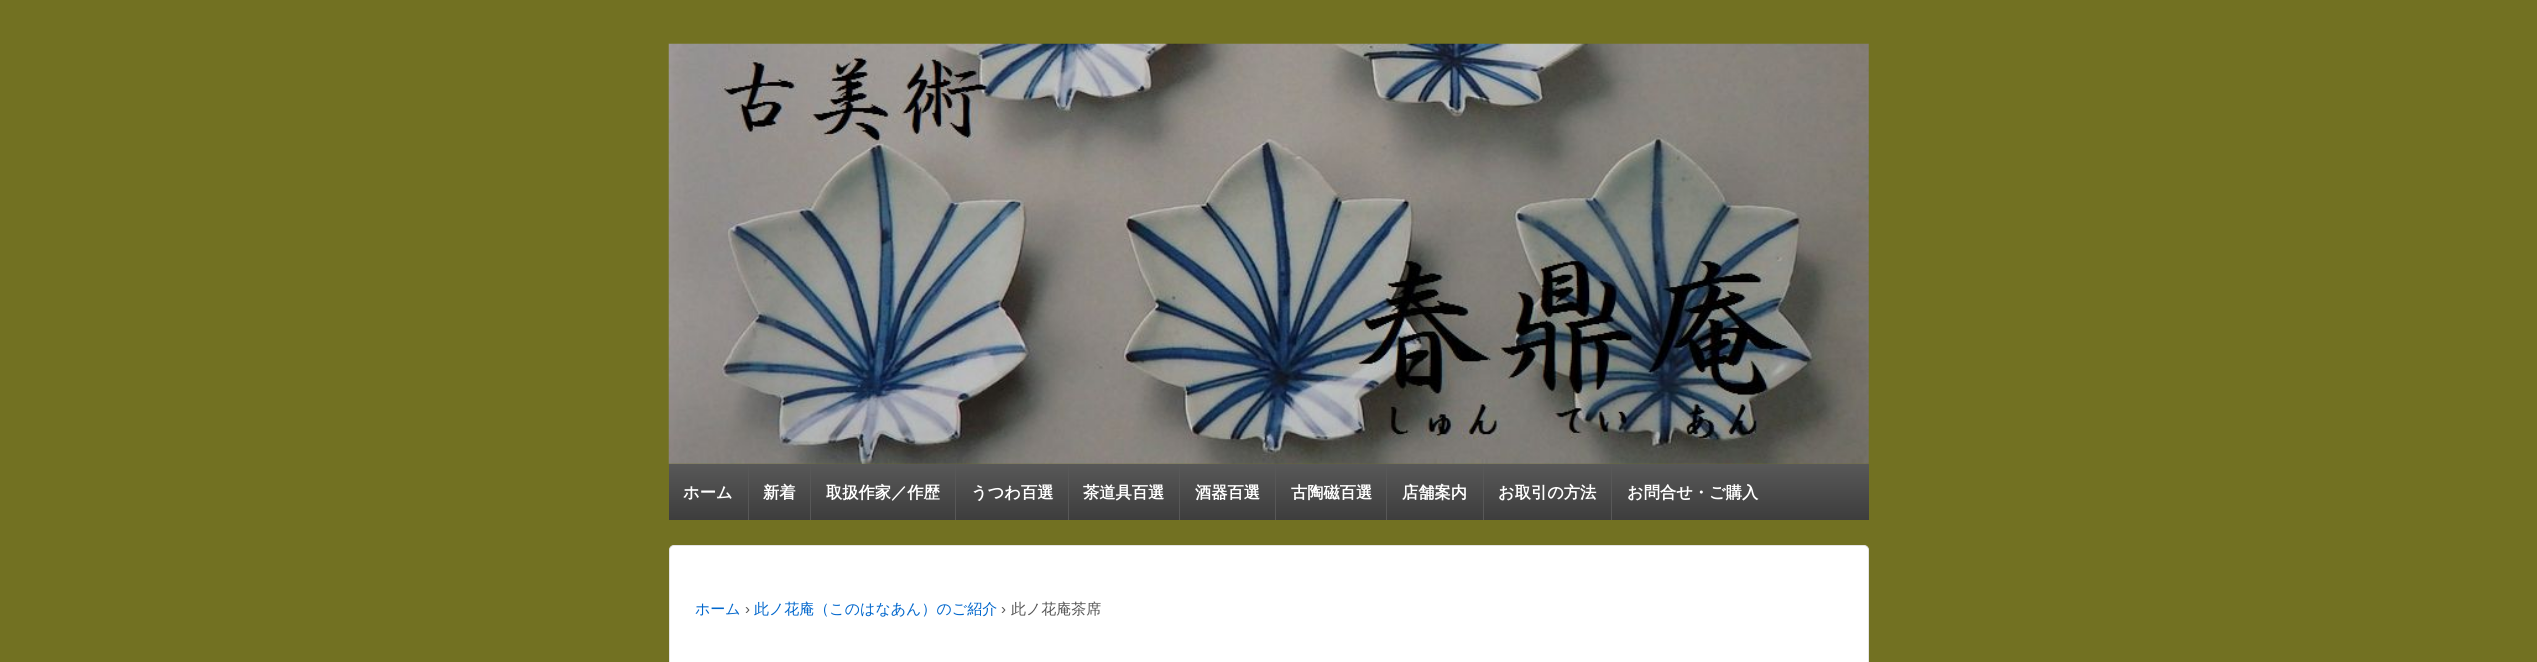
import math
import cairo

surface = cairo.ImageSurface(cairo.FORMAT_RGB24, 2537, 662)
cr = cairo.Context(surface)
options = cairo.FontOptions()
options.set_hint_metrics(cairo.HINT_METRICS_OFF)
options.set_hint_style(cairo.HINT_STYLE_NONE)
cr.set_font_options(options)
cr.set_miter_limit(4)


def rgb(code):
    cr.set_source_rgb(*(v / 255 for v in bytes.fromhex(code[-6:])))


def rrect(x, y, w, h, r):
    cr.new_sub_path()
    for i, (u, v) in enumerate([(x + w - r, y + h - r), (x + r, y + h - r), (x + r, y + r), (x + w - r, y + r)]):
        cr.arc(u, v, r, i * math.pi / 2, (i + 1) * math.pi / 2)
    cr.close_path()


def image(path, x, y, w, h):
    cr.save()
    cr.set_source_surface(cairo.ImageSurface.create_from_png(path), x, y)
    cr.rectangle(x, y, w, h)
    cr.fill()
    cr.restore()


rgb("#727122")
cr.paint()
image("img/1.png", 668, 43, 1201, 421)
gradient = cairo.LinearGradient(1269, 464, 1269, 520)
gradient.add_color_stop_rgba(0, 0.345, 0.345, 0.345, 1)
gradient.add_color_stop_rgba(1, 0.239, 0.239, 0.239, 1)
cr.set_source(gradient)
cr.rectangle(669, 464, 1200, 56)
cr.fill()
for x, y, w, h, color in [
    (748, 464, 1, 56, "#585858"),
    (810, 464, 1, 56, "#585858"),
    (955, 464, 1, 56, "#585858"),
    (1068, 464, 1, 56, "#585858"),
    (1179, 464, 1, 56, "#585858"),
    (1275, 464, 1, 56, "#585858"),
    (1386, 464, 1, 56, "#585858"),
    (1483, 464, 1, 56, "#585858"),
    (1611, 464, 1, 56, "#585858"),
]:
    rgb(color)
    cr.rectangle(x, y, w, h)
    cr.fill()
rgb("#ffffff")
rrect(669.5, 545.5, 1199, 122, 4.5)
cr.fill_preserve()
rgb("#e5e5e5")
cr.set_line_width(1)
cr.stroke()
cr.select_font_face("WenQuanYi Zen Hei", cairo.FONT_SLANT_NORMAL, cairo.FONT_WEIGHT_BOLD)
cr.set_font_size(16.25)
rgb("#ffffff")
for x, y, s in [
    (683, 498, "ホーム"),
    (763, 498, "新着"),
    (826, 498, "取扱作家／作歴"),
    (971, 498, "うつわ百選"),
    (1083, 498, "茶道具百選"),
    (1195, 498, "酒器百選"),
    (1291, 498, "古陶磁百選"),
    (1402, 498, "店舗案内"),
    (1498, 498, "お取引の方法"),
    (1627, 498, "お問合せ・ご購入"),
]:
    cr.move_to(x, y)
    cr.show_text(s)
cr.select_font_face("WenQuanYi Zen Hei Medium")
cr.set_font_size(15)
rgb("#0066cc")
cr.move_to(695, 614)
cr.show_text("ホーム")
cr.select_font_face("Liberation Sans")
rgb("#555555")
cr.move_to(745, 614)
cr.show_text("›")
cr.select_font_face("WenQuanYi Zen Hei Medium")
rgb("#0066cc")
cr.move_to(754, 614)
cr.show_text("此ノ花庵（このはなあん）のご紹介")
cr.select_font_face("Liberation Sans")
rgb("#555555")
cr.move_to(1001, 614)
cr.show_text("›")
cr.select_font_face("WenQuanYi Zen Hei Medium")
cr.move_to(1011, 614)
cr.show_text("此ノ花庵茶席")
surface.write_to_png("page.png")
